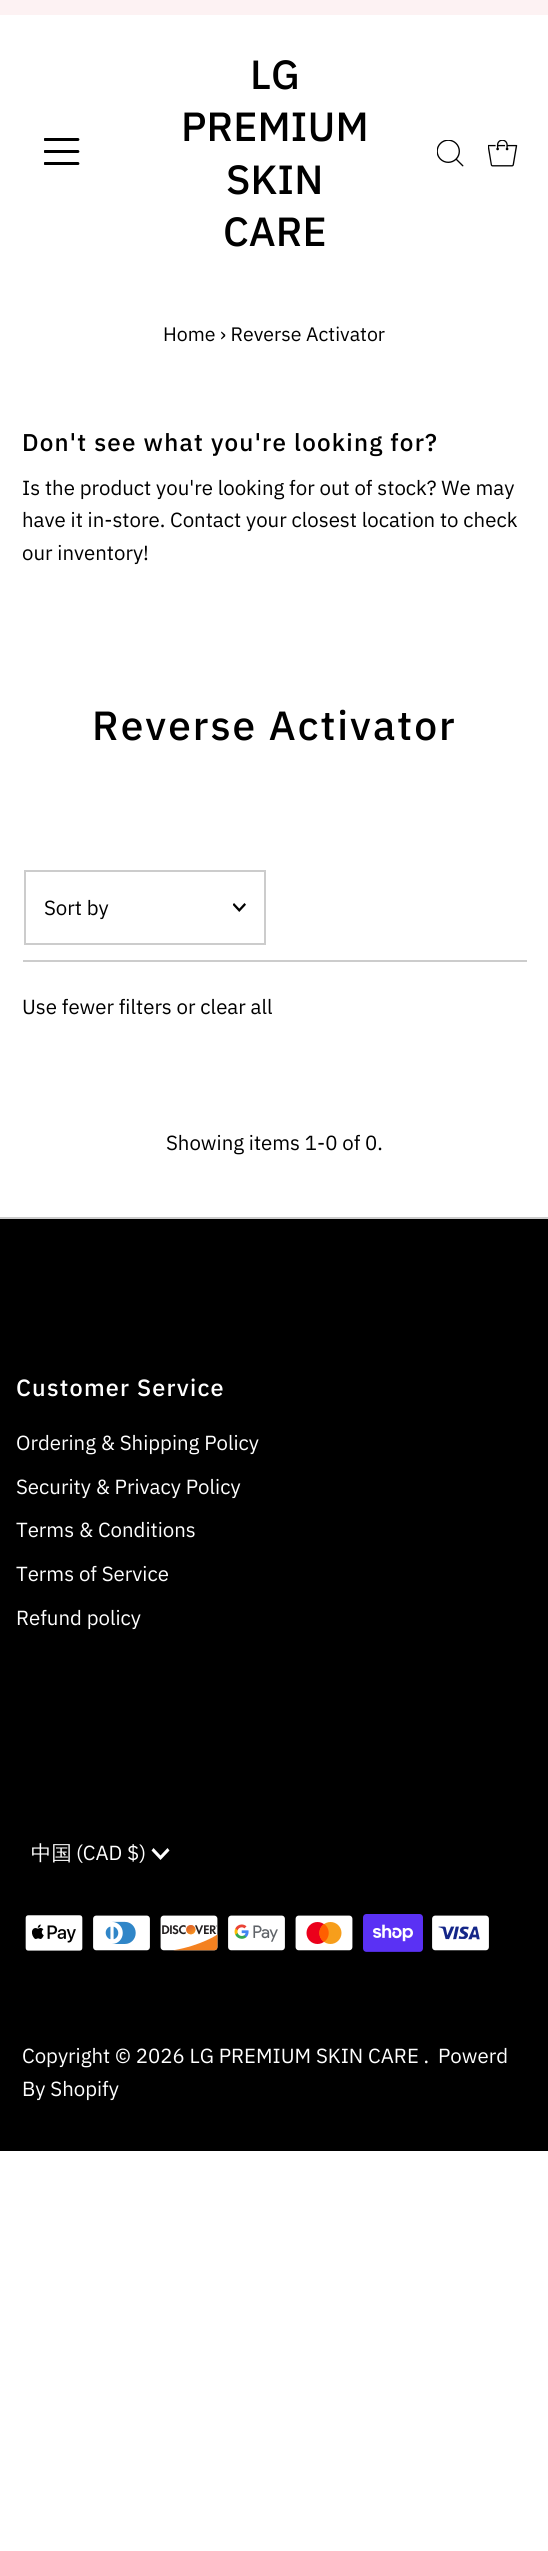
import math
import cairo

surface = cairo.ImageSurface(cairo.FORMAT_RGB24, 548, 2551)
cr = cairo.Context(surface)
options = cairo.FontOptions()
options.set_hint_metrics(cairo.HINT_METRICS_OFF)
options.set_hint_style(cairo.HINT_STYLE_NONE)
cr.set_font_options(options)
cr.set_miter_limit(4)


def rgb(code):
    cr.set_source_rgb(*(v / 255 for v in bytes.fromhex(code[-6:])))


def tracked(x, y, s, letter, word):
    cr.move_to(x, y)
    for ch in s:
        cr.show_text(ch)
        cr.rel_move_to(letter + word * (ch == ' '), 0)


def image(path, x, y, w, h):
    cr.save()
    cr.set_source_surface(cairo.ImageSurface.create_from_png(path), x, y)
    cr.rectangle(x, y, w, h)
    cr.fill()
    cr.restore()


rgb("#ffffff")
cr.paint()
rgb("#fdf2f3")
cr.rectangle(0, 0, 548, 15)
cr.fill()
image("img/1.png", 44, 138, 36, 27)
image("img/2.png", 437, 140, 27, 27)
image("img/3.png", 488, 140, 30, 27)
rgb("#cccccc")
cr.rectangle(23, 960, 504, 2)
cr.fill()
cr.rectangle(25, 871, 240, 73)
cr.stroke()
image("img/4.png", 233, 903, 13, 9)
rgb("#000000")
cr.rectangle(0, 1219, 548, 932)
cr.fill()
rgb("#cccccc")
cr.rectangle(0, 1217, 548, 2)
cr.fill()
rgb("#ffffff")
cr.new_path()
cr.move_to(167.5, 1848)
cr.line_to(160.5, 1855.5)
cr.line_to(153.5, 1848)
cr.line_to(151.5, 1850.5)
cr.line_to(160.5, 1860)
cr.line_to(169.5, 1850.5)
cr.close_path()
cr.fill()
image("img/5.png", 25, 1915, 58, 36)
image("img/6.png", 93, 1915, 57, 36)
image("img/7.png", 160, 1915, 58, 36)
image("img/8.png", 228, 1915, 57, 36)
image("img/9.png", 295, 1915, 58, 36)
image("img/10.png", 363, 1914, 60, 38)
image("img/11.png", 432, 1915, 57, 36)
cr.select_font_face("IBM Plex Sans Medium")
cr.set_font_size(40.75)
rgb("#000000")
for x, y, s in [
    (250, 89, "LG"),
    (181, 141, "PREMIUM"),
    (226, 194, "SKIN"),
    (223, 246, "CARE"),
]:
    cr.move_to(x, y)
    cr.show_text(s)
cr.select_font_face("IBM Plex Sans")
cr.set_font_size(19.5)
cr.move_to(163, 341)
cr.show_text("Home › Reverse Activator")
cr.select_font_face("IBM Plex Sans Medium")
cr.set_font_size(24.25)
tracked(22, 451, "Don't see what you're looking for?", 1.2, 0)
cr.select_font_face("IBM Plex Sans")
cr.set_font_size(20.4)
for x, y, s in [
    (22, 495, "Is the product you're looking for out of stock? We may"),
    (22, 527, "have it in-store. Contact your closest location to check"),
    (22, 560, "our inventory!"),
]:
    cr.move_to(x, y)
    cr.show_text(s)
cr.select_font_face("IBM Plex Sans Medium")
cr.set_font_size(40.75)
tracked(92, 740, "Reverse Activator", 2, 0)
cr.select_font_face("IBM Plex Sans")
cr.set_font_size(20.4)
for x, y, s in [
    (44, 915, "Sort by"),
    (22, 1014, "Use fewer filters or clear all"),
    (166, 1150, "Showing items 1-0 of 0."),
]:
    cr.move_to(x, y)
    cr.show_text(s)
cr.select_font_face("IBM Plex Sans Medium")
cr.set_font_size(23.5)
rgb("#ffffff")
tracked(16, 1396, "Customer Service", 1.2, 0)
cr.select_font_face("IBM Plex Sans")
cr.set_font_size(20.4)
for x, y, s in [
    (16, 1450, "Ordering & Shipping Policy"),
    (16, 1494, "Security & Privacy Policy"),
    (16, 1537, "Terms & Conditions"),
    (16, 1581, "Terms of Service"),
    (16, 1625, "Refund policy"),
]:
    cr.move_to(x, y)
    cr.show_text(s)
cr.select_font_face("WenQuanYi Zen Hei Medium")
cr.move_to(31, 1860)
cr.show_text("中国")
cr.select_font_face("IBM Plex Sans")
for x, y, s in [
    (76, 1860, "(CAD $)"),
    (22, 2063, "Copyright © 2026 LG PREMIUM SKIN CARE ."),
    (438, 2063, "Powerd"),
    (22, 2096, "By Shopify"),
]:
    cr.move_to(x, y)
    cr.show_text(s)
surface.write_to_png("page.png")
